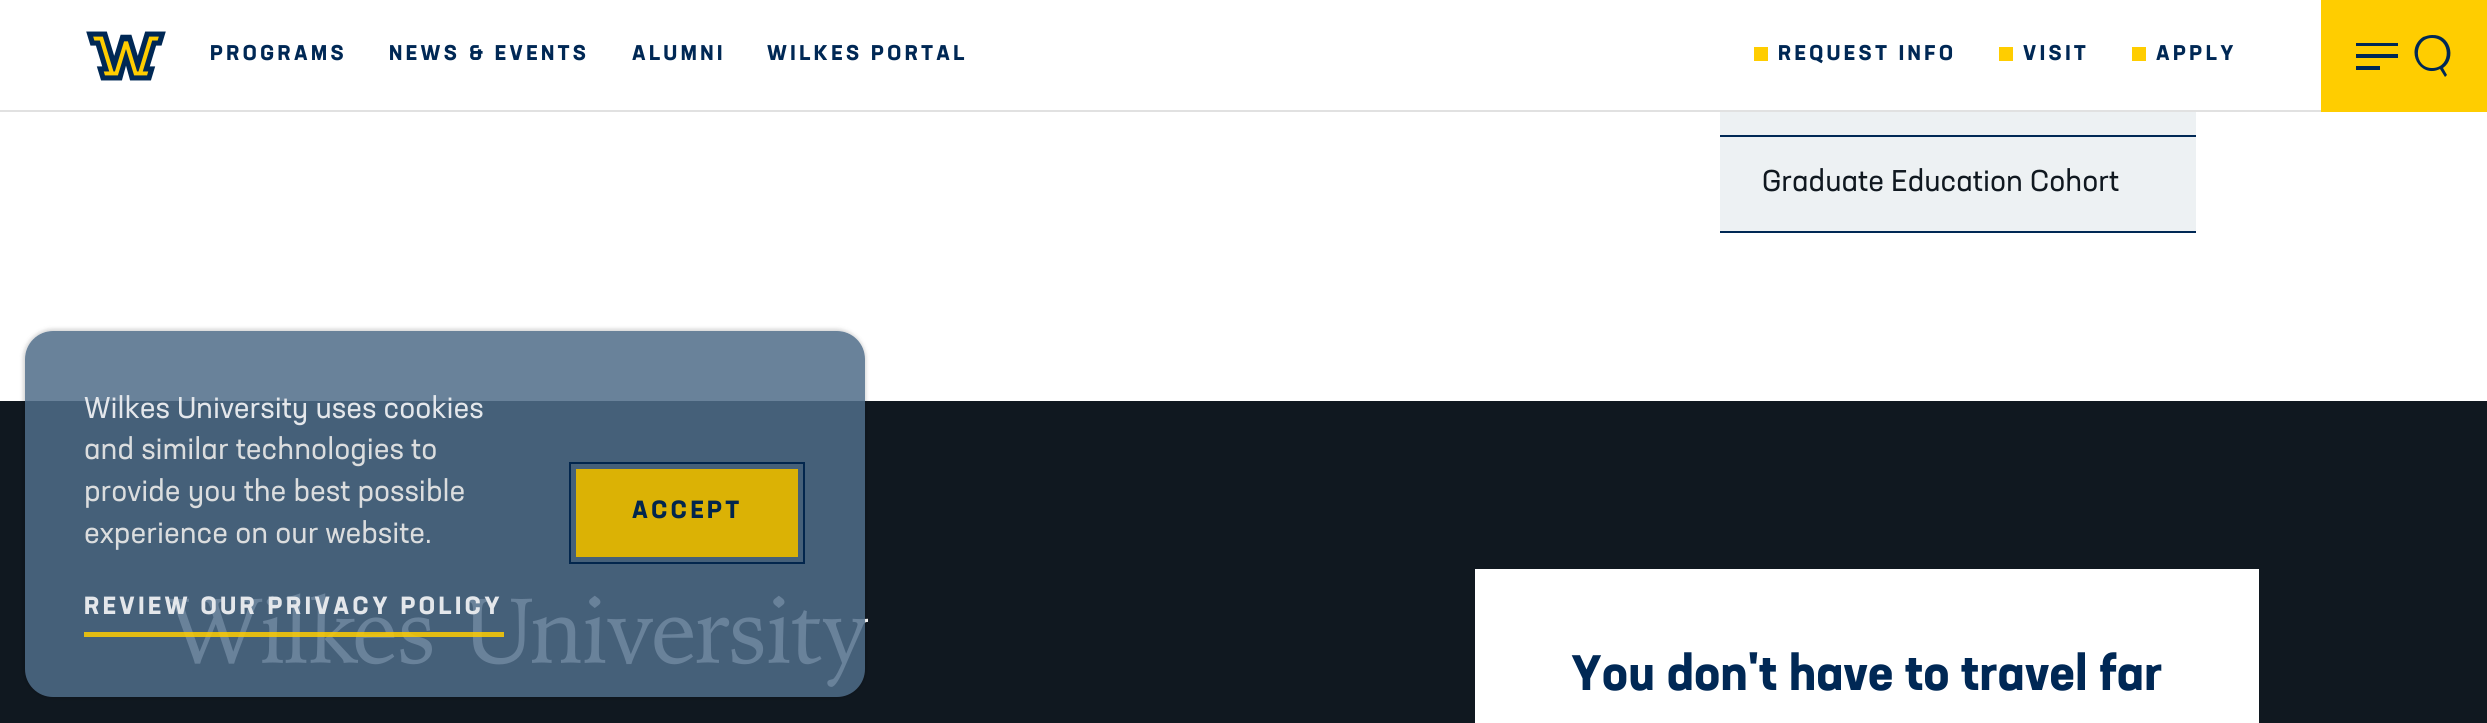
import math
import cairo

surface = cairo.ImageSurface(cairo.FORMAT_RGB24, 2487, 723)
cr = cairo.Context(surface)
options = cairo.FontOptions()
options.set_hint_metrics(cairo.HINT_METRICS_OFF)
options.set_hint_style(cairo.HINT_STYLE_NONE)
cr.set_font_options(options)
cr.set_miter_limit(4)


def rgb(code):
    cr.set_source_rgb(*(v / 255 for v in bytes.fromhex(code[-6:])))


def tracked(x, y, s, letter, word):
    cr.move_to(x, y)
    for ch in s:
        cr.show_text(ch)
        cr.rel_move_to(letter + word * (ch == ' '), 0)


def rrect(x, y, w, h, r):
    cr.new_sub_path()
    for i, (u, v) in enumerate([(x + w - r, y + h - r), (x + r, y + h - r), (x + r, y + r), (x + w - r, y + r)]):
        cr.arc(u, v, r, i * math.pi / 2, (i + 1) * math.pi / 2)
    cr.close_path()


def soft_shadow(x, y, w, h, r, blur, alpha):
    cr.push_group_with_content(cairo.CONTENT_ALPHA)
    cr.set_operator(cairo.OPERATOR_SOURCE)
    for i in range(15, -16, -2):
        e = blur * i / 6
        if min(w, h) + 2 * e > 0:
            cr.set_source_rgba(0, 0, 0, alpha * math.erfc((i - 1) / 8.5) / 2)
            rrect(x - e, y - e, w + 2 * e, h + 2 * e, max(0, min(r + e + blur * .6, min(w, h) / 2 + e)))
            cr.fill()
    cr.mask(cr.pop_group())


def image(path, x, y, w, h):
    cr.save()
    cr.set_source_surface(cairo.ImageSurface.create_from_png(path), x, y)
    cr.rectangle(x, y, w, h)
    cr.fill()
    cr.restore()


rgb("#ffffff")
cr.paint()
rgb("#e1e1e1")
cr.rectangle(0, 110, 2321, 2)
cr.fill()
image("img/1.png", 86, 31, 80, 50)
for x, y, w, h, color in [
    (1754, 47, 14, 14, "#ffcd00"),
    (1999, 47, 14, 14, "#ffcd00"),
    (2132, 47, 14, 14, "#ffcd00"),
    (2321, 0, 166, 112, "#ffcd00"),
]:
    rgb(color)
    cr.rectangle(x, y, w, h)
    cr.fill()
rgb("#002855")
cr.new_path()
cr.move_to(2380, 66)
cr.line_to(2380, 70)
cr.line_to(2356, 70)
cr.line_to(2356, 66)
cr.close_path()
cr.move_to(2398, 54)
cr.line_to(2398, 58)
cr.line_to(2356, 58)
cr.line_to(2356, 54)
cr.close_path()
cr.move_to(2398, 43)
cr.line_to(2398, 46)
cr.line_to(2356, 46)
cr.line_to(2356, 43)
cr.close_path()
cr.fill()
cr.new_path()
cr.move_to(2432, 38)
cr.curve_to(2413, 38, 2413, 69, 2433, 68)
cr.curve_to(2452, 67, 2451, 38, 2432, 38)
cr.close_path()
cr.move_to(2445, 77)
cr.line_to(2440, 69)
cr.curve_to(2420, 79, 2404, 50, 2423, 37)
cr.curve_to(2426, 36, 2429, 35, 2432, 35)
cr.curve_to(2450, 34, 2457, 58, 2443, 68)
cr.line_to(2447, 75)
cr.close_path()
cr.fill()
for x, y, w, h, color in [
    (1720, 135, 476, 2, "#002855"),
    (1720, 112, 476, 23, "#edf1f3"),
    (1720, 231, 476, 2, "#002855"),
    (1720, 137, 476, 94, "#edf1f3"),
    (0, 401, 2487, 322, "#101820"),
]:
    rgb(color)
    cr.rectangle(x, y, w, h)
    cr.fill()
image("img/2.png", 168, 593, 700, 94)
cr.save()
cr.set_fill_rule(cairo.FILL_RULE_EVEN_ODD)
cr.new_path()
cr.move_to(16, 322)
cr.line_to(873, 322)
cr.line_to(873, 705)
cr.line_to(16, 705)
cr.close_path()
cr.move_to(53, 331)
cr.line_to(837, 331)
cr.curve_to(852.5, 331, 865, 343.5, 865, 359)
cr.line_to(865, 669)
cr.curve_to(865, 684.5, 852.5, 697, 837, 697)
cr.line_to(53, 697)
cr.curve_to(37.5, 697, 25, 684.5, 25, 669)
cr.line_to(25, 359)
cr.curve_to(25, 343.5, 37.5, 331, 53, 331)
cr.close_path()
cr.clip()
rgb("#000000")
soft_shadow(23, 329, 843, 369, 30, 2, 0.17)
cr.restore()
cr.set_source_rgba(0.31, 0.424, 0.537, 0.85)
rrect(25, 331, 840, 366, 28)
cr.fill()
cr.set_source_rgba(1, 0.804, 0, 0.85)
cr.rectangle(84, 632, 420, 5)
cr.fill()
rgb("#dbb205")
cr.rectangle(576, 469, 222, 88)
cr.fill()
cr.rectangle(570, 463, 234, 100)
rgb("#02264d")
cr.stroke()
rgb("#ffffff")
cr.rectangle(1475, 569, 784, 154)
cr.fill()
cr.select_font_face("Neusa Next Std", cairo.FONT_SLANT_NORMAL, cairo.FONT_WEIGHT_BOLD)
cr.set_font_size(21)
rgb("#002855")
for x, y, s in [
    (210, 60, "PROGRAMS"),
    (389, 60, "NEWS & EVENTS"),
    (632, 60, "ALUMNI"),
    (767, 60, "WILKES PORTAL"),
    (1778, 60, "REQUEST INFO"),
    (2023, 60, "VISIT"),
    (2156, 60, "APPLY"),
]:
    tracked(x, y, s, 3.5, 0)
cr.select_font_face("Neusa Next Std")
cr.set_font_size(29.75)
rgb("#101820")
cr.move_to(1762, 191)
cr.show_text("Graduate Education Cohort")
rgb("#e4e7eb")
cr.move_to(84, 418)
cr.show_text("Wilkes University uses cookies")
rgb("#dbddde")
for x, y, s in [
    (84, 459, "and similar technologies to"),
    (84, 501, "provide you the best possible"),
    (84, 543, "experience on our website."),
]:
    cr.move_to(x, y)
    cr.show_text(s)
cr.select_font_face("Neusa Next Std", cairo.FONT_SLANT_NORMAL, cairo.FONT_WEIGHT_BOLD)
cr.set_font_size(24.5)
rgb("#e4e7eb")
tracked(84, 614, "REVIEW OUR PRIVACY POLICY", 3.5, 0)
rgb("#02264d")
tracked(632, 518, "ACCEPT", 3.5, 0)
cr.set_font_size(49)
rgb("#002855")
cr.move_to(1571, 690)
cr.show_text("You don't have to travel far")
surface.write_to_png("page.png")
